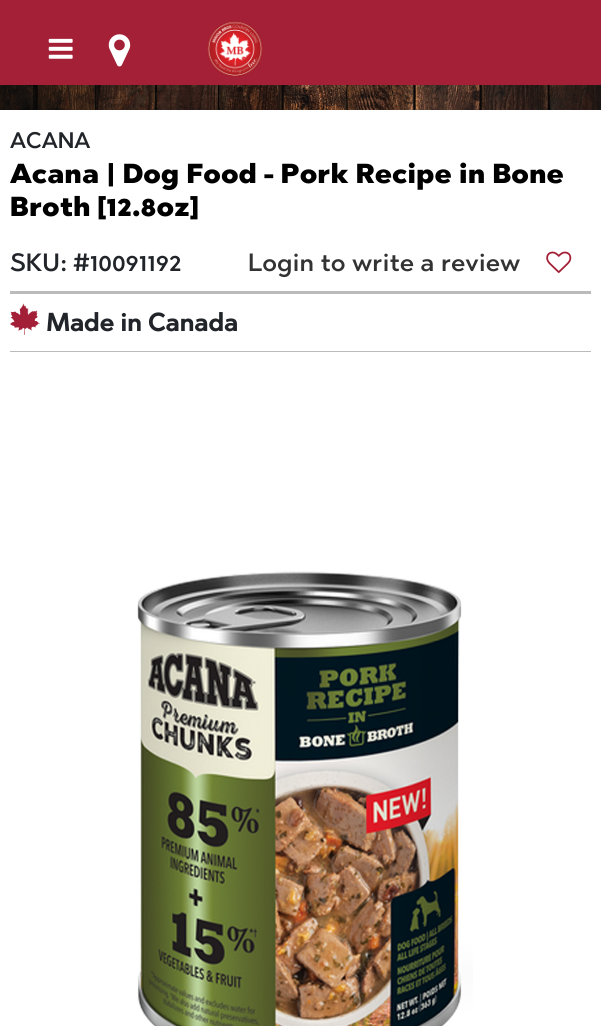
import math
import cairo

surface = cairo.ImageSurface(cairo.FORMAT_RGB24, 601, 1026)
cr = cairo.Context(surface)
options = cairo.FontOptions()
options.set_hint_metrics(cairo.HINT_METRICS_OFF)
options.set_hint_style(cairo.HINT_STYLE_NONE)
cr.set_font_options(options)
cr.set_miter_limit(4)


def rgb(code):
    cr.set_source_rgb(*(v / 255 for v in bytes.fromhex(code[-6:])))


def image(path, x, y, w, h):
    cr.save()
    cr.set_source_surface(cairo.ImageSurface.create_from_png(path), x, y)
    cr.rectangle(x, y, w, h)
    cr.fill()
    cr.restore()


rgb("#ffffff")
cr.paint()
rgb("#a32036")
cr.rectangle(0, 0, 601, 85)
cr.fill()
image("img/1.png", 48, 38, 25, 21)
image("img/2.png", 108, 34, 23, 33)
image("img/3.png", 207, 21, 56, 56)
image("img/4.png", 0, 85, 601, 25)
rgb("#bbbbbb")
cr.rectangle(10, 291, 581, 3)
cr.fill()
image("img/5.png", 546, 251, 26, 22)
cr.rectangle(10, 351, 581, 1)
cr.fill()
image("img/6.png", 10, 303, 30, 32)
image("img/7.png", 137, 571, 336, 455)
cr.select_font_face("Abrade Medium")
cr.set_font_size(22.5)
rgb("#212529")
cr.move_to(10, 148)
cr.show_text("ACANA")
cr.select_font_face("Abrade Black")
cr.set_font_size(27.5)
rgb("#000000")
cr.move_to(10, 183)
cr.show_text("Acana | Dog Food - Pork Recipe in Bone")
cr.move_to(10, 216)
cr.show_text("Broth [12.8oz]")
cr.select_font_face("Abrade Medium")
cr.set_font_size(25)
rgb("#212529")
cr.move_to(10, 271)
cr.show_text("SKU: #10091192")
rgb("#333333")
cr.move_to(248, 271)
cr.show_text("Login to write a review")
cr.select_font_face("Abrade", cairo.FONT_SLANT_NORMAL, cairo.FONT_WEIGHT_BOLD)
rgb("#212529")
cr.move_to(46, 331)
cr.show_text("Made in Canada")
surface.write_to_png("page.png")
